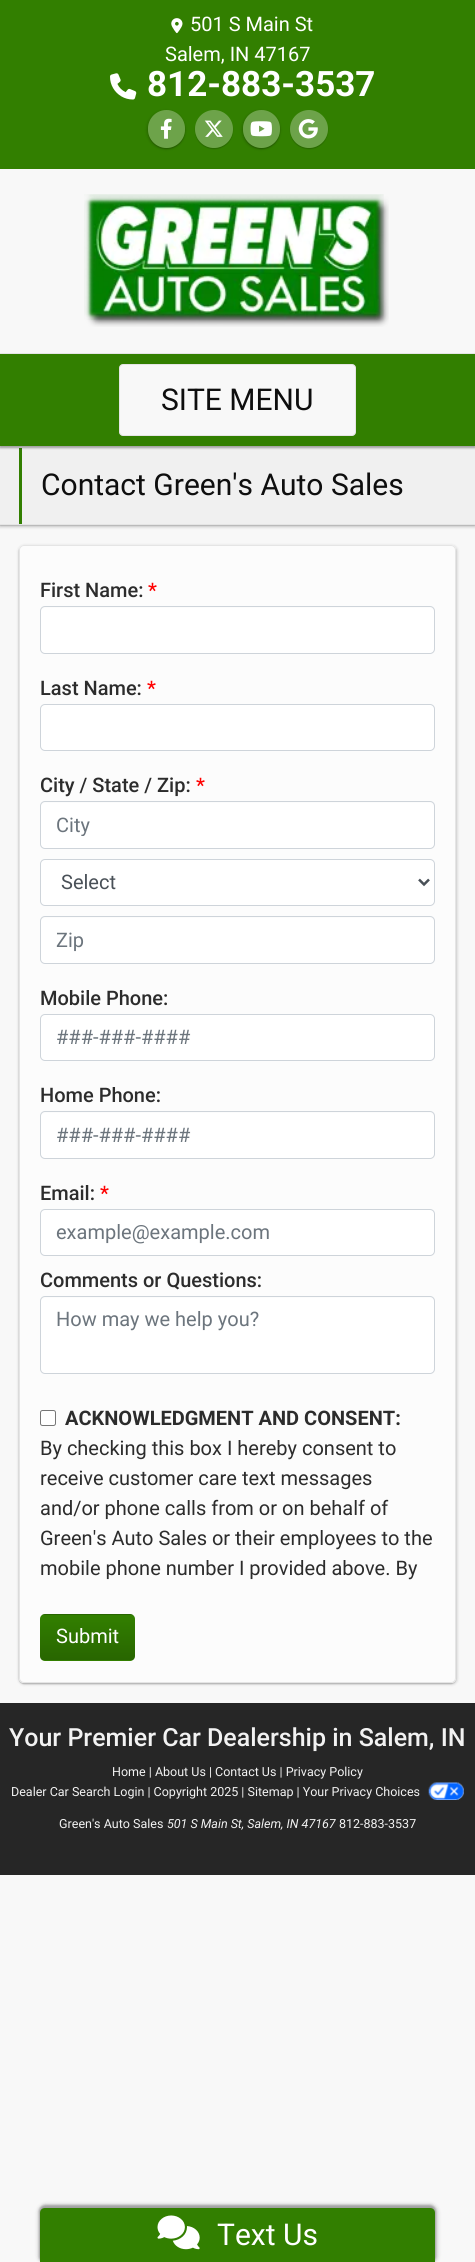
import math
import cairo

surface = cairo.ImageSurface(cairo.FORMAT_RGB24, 475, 2262)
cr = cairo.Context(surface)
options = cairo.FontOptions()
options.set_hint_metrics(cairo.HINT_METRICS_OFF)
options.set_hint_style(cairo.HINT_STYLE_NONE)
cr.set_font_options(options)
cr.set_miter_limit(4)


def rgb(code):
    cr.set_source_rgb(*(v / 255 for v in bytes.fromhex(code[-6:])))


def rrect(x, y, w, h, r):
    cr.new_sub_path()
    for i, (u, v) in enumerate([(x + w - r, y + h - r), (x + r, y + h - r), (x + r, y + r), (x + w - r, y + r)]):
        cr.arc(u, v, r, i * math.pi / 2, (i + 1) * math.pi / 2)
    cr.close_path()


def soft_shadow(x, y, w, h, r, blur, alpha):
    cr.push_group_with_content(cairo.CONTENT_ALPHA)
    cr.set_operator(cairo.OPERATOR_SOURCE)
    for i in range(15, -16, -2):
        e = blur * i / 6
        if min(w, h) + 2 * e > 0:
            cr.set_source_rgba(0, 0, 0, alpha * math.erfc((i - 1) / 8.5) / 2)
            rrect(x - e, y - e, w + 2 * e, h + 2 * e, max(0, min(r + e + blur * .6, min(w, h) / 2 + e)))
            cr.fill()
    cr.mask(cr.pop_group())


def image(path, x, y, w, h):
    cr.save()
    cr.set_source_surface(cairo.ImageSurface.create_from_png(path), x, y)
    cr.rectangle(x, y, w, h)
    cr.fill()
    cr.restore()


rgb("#f8f8f8")
cr.paint()
rgb("#000000")
soft_shadow(0, 448, 475, 78, 0, 0.5, 0.2)
soft_shadow(-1, 446, 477, 82, 0, 1, 0.1)
for x, y, w, h, color in [
    (0, 447, 475, 77, "#f0f0f0"),
    (0, 446, 475, 1, "#e5e5e5"),
    (19, 448, 3, 76, "#327f00"),
]:
    rgb(color)
    cr.rectangle(x, y, w, h)
    cr.fill()
cr.save()
cr.rectangle(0, 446, 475, 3)
cr.clip()
rgb("#000000")
soft_shadow(0, 1, 475, 447, 0, 0.5, 0.2)
cr.restore()
cr.save()
cr.rectangle(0, 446, 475, 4)
cr.clip()
rgb("#000000")
soft_shadow(-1, 0, 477, 449, 0, 1, 0.1)
cr.restore()
cr.rectangle(0, 0, 475, 169)
cr.fill()
image("img/1.png", 171, 18, 12, 16)
image("img/2.png", 110, 73, 27, 27)
cr.save()
cr.set_fill_rule(cairo.FILL_RULE_EVEN_ODD)
cr.new_path()
cr.move_to(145, 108)
cr.line_to(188, 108)
cr.line_to(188, 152)
cr.line_to(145, 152)
cr.close_path()
cr.move_to(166.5, 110)
cr.curve_to(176.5, 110, 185, 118.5, 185, 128.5)
cr.line_to(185, 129.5)
cr.curve_to(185, 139.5, 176.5, 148, 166.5, 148)
cr.curve_to(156.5, 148, 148, 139.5, 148, 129.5)
cr.line_to(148, 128.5)
cr.curve_to(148, 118.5, 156.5, 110, 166.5, 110)
cr.close_path()
cr.clip()
rgb("#000000")
soft_shadow(148, 111, 37, 38, 18.5, 0.5, 0.2)
cr.restore()
cr.save()
cr.set_fill_rule(cairo.FILL_RULE_EVEN_ODD)
cr.new_path()
cr.move_to(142, 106)
cr.line_to(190, 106)
cr.line_to(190, 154)
cr.line_to(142, 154)
cr.close_path()
cr.move_to(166.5, 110)
cr.curve_to(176.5, 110, 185, 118.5, 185, 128.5)
cr.line_to(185, 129.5)
cr.curve_to(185, 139.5, 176.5, 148, 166.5, 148)
cr.curve_to(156.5, 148, 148, 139.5, 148, 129.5)
cr.line_to(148, 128.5)
cr.curve_to(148, 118.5, 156.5, 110, 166.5, 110)
cr.close_path()
cr.clip()
rgb("#000000")
soft_shadow(146, 110, 40, 40, 20, 1, 0.1)
cr.restore()
cr.set_source_rgba(0.973, 0.973, 0.973, 0.3)
rrect(148, 110, 37, 38, 18.5)
cr.fill()
image("img/3.png", 160, 118, 12, 21)
cr.save()
cr.set_fill_rule(cairo.FILL_RULE_EVEN_ODD)
cr.new_path()
cr.move_to(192, 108)
cr.line_to(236, 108)
cr.line_to(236, 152)
cr.line_to(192, 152)
cr.close_path()
cr.move_to(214, 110)
cr.curve_to(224.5, 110, 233, 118.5, 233, 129)
cr.curve_to(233, 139.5, 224.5, 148, 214, 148)
cr.curve_to(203.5, 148, 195, 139.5, 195, 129)
cr.curve_to(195, 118.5, 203.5, 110, 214, 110)
cr.close_path()
cr.clip()
rgb("#000000")
soft_shadow(195, 111, 38, 38, 19, 0.5, 0.2)
cr.restore()
cr.arc(214, 129, 19, 0, 2 * math.pi)
cr.fill()
image("img/4.png", 204, 120, 19, 17)
cr.save()
cr.set_fill_rule(cairo.FILL_RULE_EVEN_ODD)
cr.new_path()
cr.move_to(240, 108)
cr.line_to(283, 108)
cr.line_to(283, 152)
cr.line_to(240, 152)
cr.close_path()
cr.move_to(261.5, 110)
cr.curve_to(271.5, 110, 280, 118.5, 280, 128.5)
cr.line_to(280, 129.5)
cr.curve_to(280, 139.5, 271.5, 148, 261.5, 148)
cr.curve_to(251.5, 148, 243, 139.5, 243, 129.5)
cr.line_to(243, 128.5)
cr.curve_to(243, 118.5, 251.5, 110, 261.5, 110)
cr.close_path()
cr.clip()
rgb("#000000")
soft_shadow(243, 111, 37, 38, 18.5, 0.5, 0.2)
cr.restore()
cr.save()
cr.set_fill_rule(cairo.FILL_RULE_EVEN_ODD)
cr.new_path()
cr.move_to(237, 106)
cr.line_to(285, 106)
cr.line_to(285, 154)
cr.line_to(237, 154)
cr.close_path()
cr.move_to(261.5, 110)
cr.curve_to(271.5, 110, 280, 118.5, 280, 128.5)
cr.line_to(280, 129.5)
cr.curve_to(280, 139.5, 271.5, 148, 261.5, 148)
cr.curve_to(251.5, 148, 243, 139.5, 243, 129.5)
cr.line_to(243, 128.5)
cr.curve_to(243, 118.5, 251.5, 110, 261.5, 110)
cr.close_path()
cr.clip()
rgb("#000000")
soft_shadow(241, 110, 40, 40, 20, 1, 0.1)
cr.restore()
rrect(243, 110, 37, 38, 18.5)
cr.fill()
image("img/5.png", 250, 121, 22, 16)
cr.save()
cr.set_fill_rule(cairo.FILL_RULE_EVEN_ODD)
cr.new_path()
cr.move_to(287, 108)
cr.line_to(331, 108)
cr.line_to(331, 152)
cr.line_to(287, 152)
cr.close_path()
cr.move_to(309, 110)
cr.curve_to(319.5, 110, 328, 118.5, 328, 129)
cr.curve_to(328, 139.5, 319.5, 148, 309, 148)
cr.curve_to(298.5, 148, 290, 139.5, 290, 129)
cr.curve_to(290, 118.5, 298.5, 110, 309, 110)
cr.close_path()
cr.clip()
rgb("#000000")
soft_shadow(290, 111, 38, 38, 19, 0.5, 0.2)
cr.restore()
cr.arc(309, 129, 19, 0, 2 * math.pi)
cr.fill()
image("img/6.png", 298, 119, 20, 20)
image("img/7.png", 84, 194, 305, 133)
rgb("#e5e5e5")
cr.rectangle(0, 353, 475, 1)
cr.fill()
rgb("#327f00")
cr.rectangle(0, 354, 475, 92)
cr.fill()
rgb("#f8f8f8")
rrect(119.5, 364.5, 236, 71, 3.5)
cr.fill_preserve()
rgb("#e5e5e5")
cr.set_line_width(1)
cr.stroke()
cr.rectangle(0, 524, 475, 1)
cr.fill()
cr.save()
cr.set_fill_rule(cairo.FILL_RULE_EVEN_ODD)
cr.new_path()
cr.move_to(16, 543)
cr.line_to(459, 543)
cr.line_to(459, 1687)
cr.line_to(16, 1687)
cr.close_path()
cr.move_to(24, 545)
cr.line_to(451, 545)
cr.curve_to(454, 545, 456, 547, 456, 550)
cr.line_to(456, 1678)
cr.curve_to(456, 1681, 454, 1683, 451, 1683)
cr.line_to(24, 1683)
cr.curve_to(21, 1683, 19, 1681, 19, 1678)
cr.line_to(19, 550)
cr.curve_to(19, 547, 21, 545, 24, 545)
cr.close_path()
cr.clip()
rgb("#000000")
soft_shadow(19, 546, 437, 1138, 5, 0.5, 0.2)
cr.restore()
cr.save()
cr.set_fill_rule(cairo.FILL_RULE_EVEN_ODD)
cr.new_path()
cr.move_to(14, 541)
cr.line_to(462, 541)
cr.line_to(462, 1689)
cr.line_to(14, 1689)
cr.close_path()
cr.move_to(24, 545)
cr.line_to(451, 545)
cr.curve_to(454, 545, 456, 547, 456, 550)
cr.line_to(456, 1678)
cr.curve_to(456, 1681, 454, 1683, 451, 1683)
cr.line_to(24, 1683)
cr.curve_to(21, 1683, 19, 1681, 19, 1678)
cr.line_to(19, 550)
cr.curve_to(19, 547, 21, 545, 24, 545)
cr.close_path()
cr.clip()
rgb("#000000")
soft_shadow(18, 545, 440, 1140, 6, 1, 0.1)
cr.restore()
cr.set_source_rgba(1, 1, 1, 0.6)
rrect(19.5, 545.5, 436, 1137, 4.5)
cr.fill_preserve()
rgb("#e5e5e5")
cr.stroke()
rgb("#ffffff")
rrect(41, 608, 393, 45, 4)
cr.fill()
rrect(40.5, 606.5, 394, 47, 4.5)
rgb("#ced4da")
cr.stroke()
rgb("#ffffff")
rrect(40.5, 704.5, 394, 46, 4.5)
cr.fill_preserve()
rgb("#ced4da")
cr.stroke()
rgb("#ffffff")
rrect(41, 803, 393, 45, 4)
cr.fill()
rrect(40.5, 801.5, 394, 47, 4.5)
rgb("#ced4da")
cr.stroke()
rgb("#ffffff")
rrect(40.5, 859.5, 394, 46, 4.5)
cr.fill_preserve()
rgb("#ced4da")
cr.stroke()
cr.new_path()
cr.move_to(419, 879.5)
cr.line_to(424, 884.5)
cr.line_to(429, 879.5)
rgb("#495057")
cr.set_line_width(2.5)
cr.stroke()
rgb("#ffffff")
rrect(41, 918, 393, 45, 4)
cr.fill()
rrect(40.5, 916.5, 394, 47, 4.5)
rgb("#ced4da")
cr.set_line_width(1)
cr.stroke()
rgb("#ffffff")
rrect(40.5, 1014.5, 394, 46, 4.5)
cr.fill_preserve()
rgb("#ced4da")
cr.stroke()
rgb("#ffffff")
rrect(41, 1113, 393, 45, 4)
cr.fill()
rrect(40.5, 1111.5, 394, 47, 4.5)
rgb("#ced4da")
cr.stroke()
rgb("#ffffff")
rrect(40.5, 1209.5, 394, 46, 4.5)
cr.fill_preserve()
rgb("#ced4da")
cr.stroke()
rgb("#ffffff")
rrect(41, 1298, 393, 75, 4)
cr.fill()
rrect(40.5, 1296.5, 394, 77, 4.5)
rgb("#ced4da")
cr.stroke()
rgb("#ffffff")
rrect(40.5, 1410.5, 15, 15, 2)
cr.fill_preserve()
rgb("#767676")
cr.stroke()
rgb("#327f00")
rrect(40, 1614, 95, 47, 5)
cr.fill()
cr.save()
rrect(40, 1614, 95, 47, 5)
cr.clip()
gradient = cairo.LinearGradient(88, 1570, 88, 1615)
gradient.add_color_stop_rgba(0, 0, 0, 0, 0)
gradient.add_color_stop_rgba(1, 0, 0, 0, 0.2)
cr.set_source(gradient)
cr.rectangle(40, 1614, 95, 1)
cr.fill()
gradient = cairo.LinearGradient(88, 1615, 88, 1660)
gradient.add_color_stop_rgba(0, 0, 0, 0, 0)
gradient.add_color_stop_rgba(1, 0, 0, 0, 0.2)
cr.set_source(gradient)
cr.rectangle(40, 1620, 95, 40)
cr.fill()
cr.restore()
rgb("#262626")
cr.rectangle(0, 1703, 475, 172)
cr.fill()
image("img/8.png", 428, 1782, 36, 18)
rgb("#000000")
soft_shadow(39, 2205, 397, 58, 6, 1, 0.25)
soft_shadow(38, 2204, 400, 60, 8, 2, 0.15)
rgb("#327f00")
cr.new_path()
cr.move_to(45, 2208)
cr.line_to(430, 2208)
cr.curve_to(433, 2208, 435, 2210, 435, 2213)
cr.line_to(435, 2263)
cr.line_to(40, 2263)
cr.line_to(40, 2213)
cr.curve_to(40, 2210, 42, 2208, 45, 2208)
cr.close_path()
cr.fill()
image("img/9.png", 157, 2215, 43, 35)
cr.select_font_face("Roboto")
cr.set_font_size(20)
rgb("#ffffff")
cr.move_to(190, 31)
cr.show_text("501 S Main St")
cr.move_to(165, 61)
cr.show_text("Salem, IN 47167")
cr.select_font_face("Roboto", cairo.FONT_SLANT_NORMAL, cairo.FONT_WEIGHT_BOLD)
cr.set_font_size(35)
cr.move_to(147, 96)
cr.show_text("812-883-3537")
cr.select_font_face("Roboto")
cr.set_font_size(30)
rgb("#0e0e0e")
cr.move_to(161, 410)
cr.show_text("SITE MENU")
cr.move_to(41, 495)
cr.show_text("Contact Green's Auto Sales")
cr.select_font_face("Roboto Medium")
cr.set_font_size(20)
rgb("#2c2c2c")
cr.move_to(40, 597)
cr.show_text("First Name:")
rgb("#ff0000")
cr.move_to(148, 597)
cr.show_text("*")
rgb("#2c2c2c")
cr.move_to(40, 695)
cr.show_text("Last Name:")
rgb("#ff0000")
cr.move_to(147, 695)
cr.show_text("*")
rgb("#2c2c2c")
cr.move_to(40, 792)
cr.show_text("City / State / Zip:")
rgb("#ff0000")
cr.move_to(196, 792)
cr.show_text("*")
cr.save()
cr.rectangle(56, 813, 363, 23)
cr.clip()
cr.select_font_face("Roboto")
rgb("#6c757d")
cr.move_to(56, 832)
cr.show_text("City")
cr.restore()
cr.select_font_face("Roboto")
rgb("#495057")
cr.move_to(61, 889)
cr.show_text("Select")
rgb("#6c757d")
cr.move_to(56, 947)
cr.show_text("Zip")
cr.select_font_face("Roboto Medium")
rgb("#2c2c2c")
cr.move_to(40, 1005)
cr.show_text("Mobile Phone:")
cr.select_font_face("Roboto")
rgb("#6c757d")
cr.move_to(56, 1044)
cr.show_text("###-###-####")
cr.select_font_face("Roboto Medium")
rgb("#2c2c2c")
cr.move_to(40, 1102)
cr.show_text("Home Phone:")
cr.select_font_face("Roboto")
rgb("#6c757d")
cr.move_to(56, 1142)
cr.show_text("###-###-####")
cr.select_font_face("Roboto Medium")
rgb("#2c2c2c")
cr.move_to(40, 1200)
cr.show_text("Email:")
rgb("#ff0000")
cr.move_to(100, 1200)
cr.show_text("*")
cr.select_font_face("Roboto")
rgb("#6c757d")
cr.move_to(56, 1239)
cr.show_text("example@example.com")
cr.select_font_face("Roboto Medium")
rgb("#2c2c2c")
cr.move_to(40, 1287)
cr.show_text("Comments or Questions:")
cr.select_font_face("Roboto")
rgb("#6c757d")
cr.move_to(56, 1326)
cr.show_text("How may we help you?")
cr.select_font_face("Roboto", cairo.FONT_SLANT_NORMAL, cairo.FONT_WEIGHT_BOLD)
rgb("#2c2c2c")
cr.move_to(65, 1425)
cr.show_text("ACKNOWLEDGMENT AND CONSENT:")
cr.select_font_face("Roboto")
for x, y, s in [
    (40, 1455, "By checking this box I hereby consent to"),
    (40, 1485, "receive customer care text messages"),
    (40, 1515, "and/or phone calls from or on behalf of"),
    (40, 1545, "Green's Auto Sales or their employees to the"),
    (40, 1575, "mobile phone number I provided above. By"),
]:
    cr.move_to(x, y)
    cr.show_text(s)
rgb("#ffffff")
cr.move_to(56, 1643)
cr.show_text("Submit")
cr.select_font_face("Roboto Medium")
cr.set_font_size(25)
rgb("#f2f2f2")
cr.move_to(9, 1746)
cr.show_text("Your Premier Car Dealership in Salem, IN")
cr.select_font_face("Roboto")
cr.set_font_size(12.5)
for x, y, s in [
    (112, 1776, "Home | About Us | Contact Us | Privacy Policy"),
    (11, 1796, "Dealer Car Search Login | Copyright 2025 | Sitemap | Your Privacy Choices"),
    (59, 1828, "Green's Auto Sales"),
]:
    cr.move_to(x, y)
    cr.show_text(s)
cr.select_font_face("Roboto", cairo.FONT_SLANT_ITALIC)
cr.move_to(167, 1828)
cr.show_text("501 S Main St, Salem, IN 47167")
cr.select_font_face("Roboto")
cr.move_to(339, 1828)
cr.show_text("812-883-3537")
cr.set_font_size(30)
rgb("#ffffff")
cr.move_to(217, 2245)
cr.show_text("Text Us")
surface.write_to_png("page.png")
